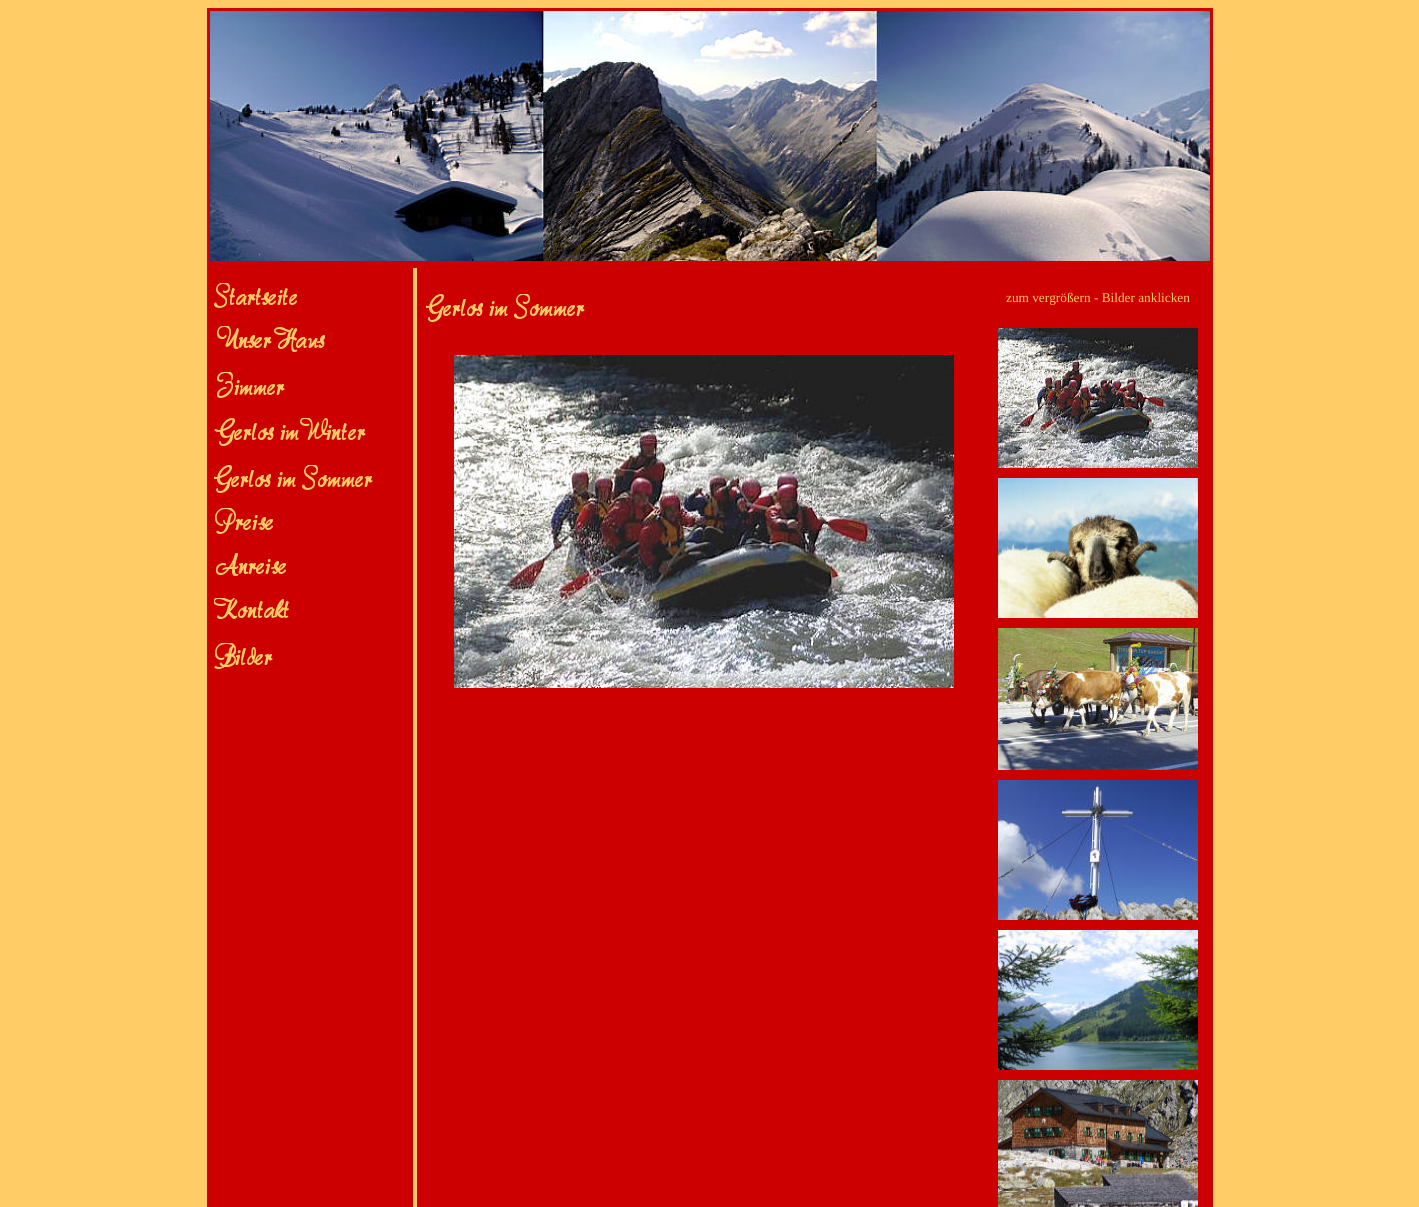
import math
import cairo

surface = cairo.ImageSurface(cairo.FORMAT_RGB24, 1419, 1207)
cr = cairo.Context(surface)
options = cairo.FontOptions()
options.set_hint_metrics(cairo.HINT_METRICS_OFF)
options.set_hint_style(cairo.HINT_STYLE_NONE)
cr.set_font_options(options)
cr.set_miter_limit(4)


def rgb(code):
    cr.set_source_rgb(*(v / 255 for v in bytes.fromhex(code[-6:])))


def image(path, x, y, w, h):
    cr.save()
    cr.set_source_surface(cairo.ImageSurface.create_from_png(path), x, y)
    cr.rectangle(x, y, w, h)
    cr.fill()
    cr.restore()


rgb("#ffcc66")
cr.paint()
rgb("#cc0000")
cr.rectangle(207, 8, 1006, 1199)
cr.fill()
image("img/1.png", 210, 11, 1000, 250)
image("img/2.png", 214, 283, 83, 25)
image("img/3.png", 217, 326, 108, 26)
image("img/4.png", 217, 372, 68, 26)
image("img/5.png", 214, 418, 152, 28)
image("img/6.png", 214, 465, 159, 28)
image("img/7.png", 215, 508, 58, 26)
image("img/8.png", 216, 553, 70, 23)
image("img/9.png", 214, 598, 75, 21)
image("img/10.png", 214, 643, 59, 26)
rgb("#ffcc66")
cr.rectangle(413, 268, 4, 939)
cr.fill()
image("img/6.png", 426, 294, 159, 28)
image("img/11.png", 454, 355, 500, 333)
image("img/12.png", 998, 328, 200, 140)
image("img/13.png", 998, 478, 200, 140)
image("img/14.png", 998, 628, 200, 142)
image("img/15.png", 998, 780, 200, 140)
image("img/16.png", 998, 930, 200, 140)
image("img/17.png", 998, 1080, 200, 127)
cr.select_font_face("Liberation Serif")
cr.set_font_size(13.3)
cr.move_to(1006, 302)
cr.show_text("zum vergrößern - Bilder anklicken")
surface.write_to_png("page.png")
